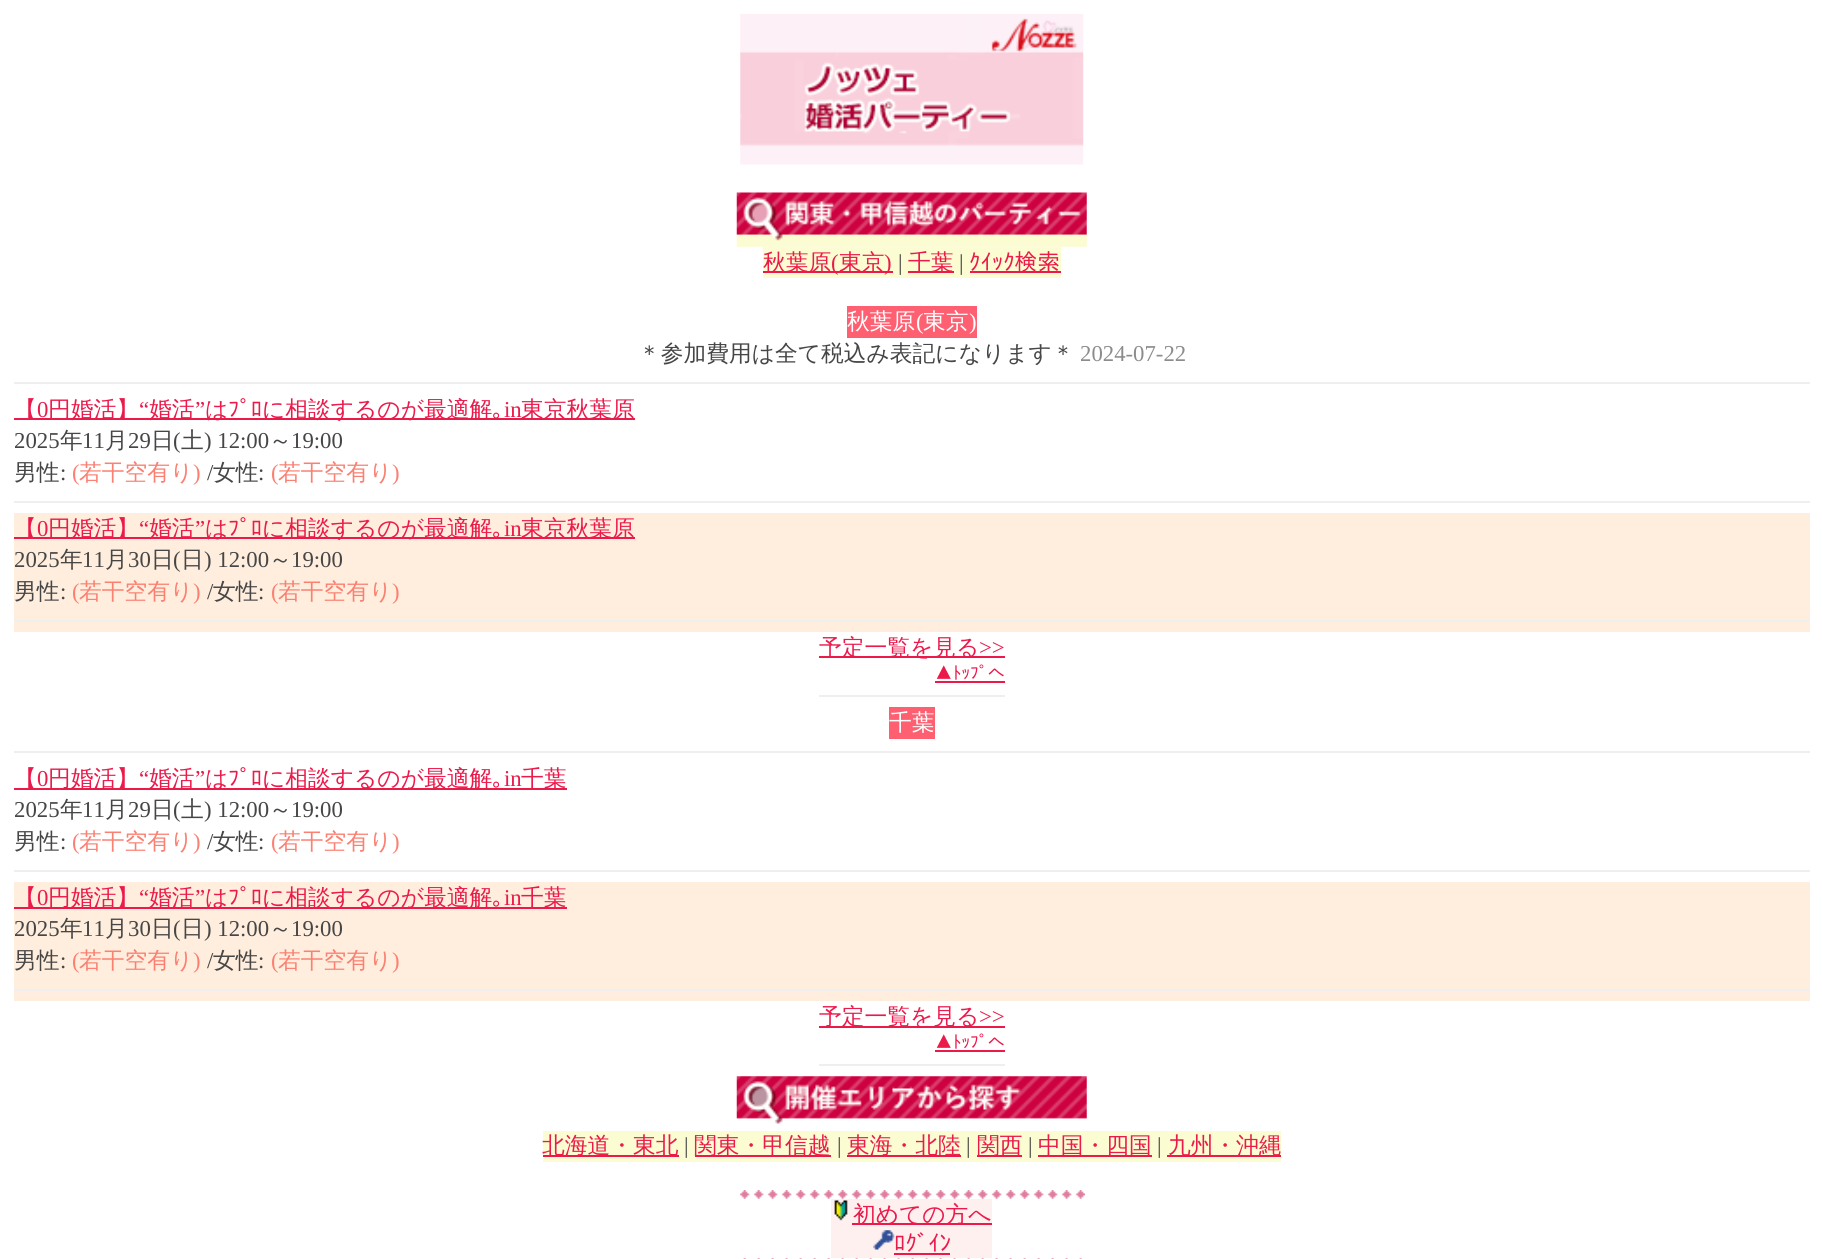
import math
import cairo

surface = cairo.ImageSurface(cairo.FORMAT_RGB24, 1822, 1259)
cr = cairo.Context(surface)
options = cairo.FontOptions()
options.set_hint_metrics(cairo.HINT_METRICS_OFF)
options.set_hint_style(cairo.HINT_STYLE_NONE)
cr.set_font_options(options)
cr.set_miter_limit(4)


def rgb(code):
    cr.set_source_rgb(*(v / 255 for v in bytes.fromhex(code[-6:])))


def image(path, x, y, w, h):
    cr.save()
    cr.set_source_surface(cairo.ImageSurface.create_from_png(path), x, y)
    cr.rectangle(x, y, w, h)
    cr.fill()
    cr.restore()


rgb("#ffffff")
cr.paint()
image("img/1.png", 740, 14, 344, 151)
image("img/2.png", 736, 192, 351, 55)
for x, y, w, h, color in [
    (763, 247, 298, 31, "#fbfcd1"),
    (763, 271, 130, 2, "#eb1a4b"),
    (908, 271, 46, 2, "#eb1a4b"),
    (970, 271, 91, 2, "#eb1a4b"),
    (847, 306, 130, 32, "#fe5f71"),
    (14, 382, 1796, 2, "#efefef"),
    (14, 418, 621, 2, "#eb1a4b"),
    (14, 501, 1796, 2, "#efefef"),
    (14, 513, 1796, 119, "#ffeedd"),
    (14, 537, 621, 2, "#eb1a4b"),
    (14, 620, 1796, 2, "#efefef"),
    (819, 656, 186, 2, "#eb1a4b"),
    (935, 681, 70, 2, "#eb1a4b"),
    (819, 695, 186, 2, "#efefef"),
    (889, 707, 46, 32, "#fe5f71"),
    (14, 751, 1796, 2, "#efefef"),
    (14, 788, 553, 2, "#eb1a4b"),
    (14, 870, 1796, 2, "#efefef"),
    (14, 882, 1796, 119, "#ffeedd"),
    (14, 907, 553, 2, "#eb1a4b"),
    (14, 989, 1796, 2, "#efefef"),
    (819, 1026, 186, 2, "#eb1a4b"),
    (935, 1050, 70, 2, "#eb1a4b"),
    (819, 1064, 186, 2, "#efefef"),
]:
    rgb(color)
    cr.rectangle(x, y, w, h)
    cr.fill()
image("img/3.png", 736, 1076, 351, 48)
for x, y, w, h, color in [
    (543, 1131, 738, 31, "#fbfcd1"),
    (543, 1155, 136, 2, "#eb1a4b"),
    (695, 1155, 136, 2, "#eb1a4b"),
    (847, 1155, 114, 2, "#eb1a4b"),
    (977, 1155, 45, 2, "#eb1a4b"),
    (1038, 1155, 114, 2, "#eb1a4b"),
    (1167, 1155, 114, 2, "#eb1a4b"),
]:
    rgb(color)
    cr.rectangle(x, y, w, h)
    cr.fill()
image("img/4.png", 740, 1190, 345, 9)
rgb("#fff0f0")
cr.rectangle(831, 1199, 161, 59)
cr.fill()
image("img/5.png", 834, 1200, 14, 21)
rgb("#eb1a4b")
cr.rectangle(852, 1223, 140, 2)
cr.fill()
image("img/6.png", 873, 1230, 22, 20)
cr.rectangle(894, 1253, 56, 2)
cr.fill()
image("img/7.png", 743, 1258, 339, 1)
cr.select_font_face("WenQuanYi Zen Hei Medium")
cr.set_font_size(22.75)
cr.move_to(763, 270)
cr.show_text("秋葉原")
cr.select_font_face("Liberation Serif")
cr.move_to(831, 270)
cr.show_text("(")
cr.select_font_face("WenQuanYi Zen Hei Medium")
cr.move_to(839, 270)
cr.show_text("東京")
cr.select_font_face("Liberation Serif")
cr.move_to(884, 270)
cr.show_text(")")
rgb("#464646")
cr.move_to(898, 270)
cr.show_text("|")
cr.select_font_face("WenQuanYi Zen Hei Medium")
rgb("#eb1a4b")
cr.move_to(908, 270)
cr.show_text("千葉")
cr.select_font_face("Liberation Serif")
rgb("#464646")
cr.move_to(959, 270)
cr.show_text("|")
cr.select_font_face("IPAGothic")
rgb("#eb1a4b")
cr.move_to(969, 270)
cr.show_text("ｸｲｯｸ検索")
cr.select_font_face("WenQuanYi Zen Hei Medium")
rgb("#ffffff")
cr.move_to(847, 329)
cr.show_text("秋葉原")
cr.select_font_face("Liberation Serif")
cr.move_to(916, 329)
cr.show_text("(")
cr.select_font_face("WenQuanYi Zen Hei Medium")
cr.move_to(923, 329)
cr.show_text("東京")
cr.select_font_face("Liberation Serif")
cr.move_to(969, 329)
cr.show_text(")")
cr.select_font_face("WenQuanYi Zen Hei Medium")
rgb("#464646")
cr.move_to(638, 361)
cr.show_text("＊参加費用は全て税込み表記になります＊")
cr.select_font_face("Liberation Serif")
rgb("#8c8c8c")
cr.move_to(1080, 361)
cr.show_text("2024-07-22")
cr.select_font_face("WenQuanYi Zen Hei Medium")
rgb("#eb1a4b")
cr.move_to(14, 417)
cr.show_text("【")
cr.select_font_face("Liberation Serif")
cr.move_to(37, 417)
cr.show_text("0")
cr.select_font_face("WenQuanYi Zen Hei Medium")
cr.move_to(48, 417)
cr.show_text("円婚活】")
cr.select_font_face("Liberation Serif")
cr.move_to(139, 417)
cr.show_text("“")
cr.select_font_face("WenQuanYi Zen Hei Medium")
cr.move_to(149, 417)
cr.show_text("婚活")
cr.select_font_face("Liberation Serif")
cr.move_to(195, 417)
cr.show_text("”")
cr.select_font_face("WenQuanYi Zen Hei Medium")
cr.move_to(205, 417)
cr.show_text("は")
cr.select_font_face("IPAGothic")
cr.move_to(228, 417)
cr.show_text("ﾌﾟﾛ")
cr.select_font_face("WenQuanYi Zen Hei Medium")
cr.move_to(262, 417)
cr.show_text("に相談するのが最適解")
cr.select_font_face("IPAGothic")
cr.move_to(492, 417)
cr.show_text("｡")
cr.select_font_face("Liberation Serif")
cr.move_to(504, 417)
cr.show_text("in")
cr.select_font_face("WenQuanYi Zen Hei Medium")
cr.move_to(521, 417)
cr.show_text("東京秋葉原")
cr.select_font_face("Liberation Serif")
rgb("#464646")
cr.move_to(14, 448)
cr.show_text("2025")
cr.select_font_face("WenQuanYi Zen Hei Medium")
cr.move_to(60, 448)
cr.show_text("年")
cr.select_font_face("Liberation Serif")
cr.move_to(82, 448)
cr.show_text("11")
cr.select_font_face("WenQuanYi Zen Hei Medium")
cr.move_to(105, 448)
cr.show_text("月")
cr.select_font_face("Liberation Serif")
cr.move_to(128, 448)
cr.show_text("29")
cr.select_font_face("WenQuanYi Zen Hei Medium")
cr.move_to(151, 448)
cr.show_text("日")
cr.select_font_face("Liberation Serif")
cr.move_to(173, 448)
cr.show_text("(")
cr.select_font_face("WenQuanYi Zen Hei Medium")
cr.move_to(181, 448)
cr.show_text("土")
cr.select_font_face("Liberation Serif")
cr.move_to(204, 448)
cr.show_text(") 12:00")
cr.select_font_face("WenQuanYi Zen Hei Medium")
cr.move_to(269, 448)
cr.show_text("～")
cr.select_font_face("Liberation Serif")
cr.move_to(291, 448)
cr.show_text("19:00")
cr.select_font_face("WenQuanYi Zen Hei Medium")
cr.move_to(14, 480)
cr.show_text("男性")
cr.select_font_face("Liberation Serif")
cr.move_to(60, 480)
cr.show_text(":")
rgb("#fa8072")
cr.move_to(72, 480)
cr.show_text("(")
cr.select_font_face("WenQuanYi Zen Hei Medium")
cr.move_to(79, 480)
cr.show_text("若干空有り")
cr.select_font_face("Liberation Serif")
cr.move_to(193, 480)
cr.show_text(")")
rgb("#464646")
cr.move_to(207, 480)
cr.show_text("/")
cr.select_font_face("WenQuanYi Zen Hei Medium")
cr.move_to(213, 480)
cr.show_text("女性")
cr.select_font_face("Liberation Serif")
cr.move_to(258, 480)
cr.show_text(":")
rgb("#fa8072")
cr.move_to(271, 480)
cr.show_text("(")
cr.select_font_face("WenQuanYi Zen Hei Medium")
cr.move_to(278, 480)
cr.show_text("若干空有り")
cr.select_font_face("Liberation Serif")
cr.move_to(392, 480)
cr.show_text(")")
cr.select_font_face("WenQuanYi Zen Hei Medium")
rgb("#eb1a4b")
cr.move_to(14, 536)
cr.show_text("【")
cr.select_font_face("Liberation Serif")
cr.move_to(37, 536)
cr.show_text("0")
cr.select_font_face("WenQuanYi Zen Hei Medium")
cr.move_to(48, 536)
cr.show_text("円婚活】")
cr.select_font_face("Liberation Serif")
cr.move_to(139, 536)
cr.show_text("“")
cr.select_font_face("WenQuanYi Zen Hei Medium")
cr.move_to(149, 536)
cr.show_text("婚活")
cr.select_font_face("Liberation Serif")
cr.move_to(195, 536)
cr.show_text("”")
cr.select_font_face("WenQuanYi Zen Hei Medium")
cr.move_to(205, 536)
cr.show_text("は")
cr.select_font_face("IPAGothic")
cr.move_to(228, 536)
cr.show_text("ﾌﾟﾛ")
cr.select_font_face("WenQuanYi Zen Hei Medium")
cr.move_to(262, 536)
cr.show_text("に相談するのが最適解")
cr.select_font_face("IPAGothic")
cr.move_to(492, 536)
cr.show_text("｡")
cr.select_font_face("Liberation Serif")
cr.move_to(504, 536)
cr.show_text("in")
cr.select_font_face("WenQuanYi Zen Hei Medium")
cr.move_to(521, 536)
cr.show_text("東京秋葉原")
cr.select_font_face("Liberation Serif")
rgb("#464646")
cr.move_to(14, 567)
cr.show_text("2025")
cr.select_font_face("WenQuanYi Zen Hei Medium")
cr.move_to(60, 567)
cr.show_text("年")
cr.select_font_face("Liberation Serif")
cr.move_to(82, 567)
cr.show_text("11")
cr.select_font_face("WenQuanYi Zen Hei Medium")
cr.move_to(105, 567)
cr.show_text("月")
cr.select_font_face("Liberation Serif")
cr.move_to(128, 567)
cr.show_text("30")
cr.select_font_face("WenQuanYi Zen Hei Medium")
cr.move_to(151, 567)
cr.show_text("日")
cr.select_font_face("Liberation Serif")
cr.move_to(173, 567)
cr.show_text("(")
cr.select_font_face("WenQuanYi Zen Hei Medium")
cr.move_to(181, 567)
cr.show_text("日")
cr.select_font_face("Liberation Serif")
cr.move_to(204, 567)
cr.show_text(") 12:00")
cr.select_font_face("WenQuanYi Zen Hei Medium")
cr.move_to(269, 567)
cr.show_text("～")
cr.select_font_face("Liberation Serif")
cr.move_to(291, 567)
cr.show_text("19:00")
cr.select_font_face("WenQuanYi Zen Hei Medium")
cr.move_to(14, 599)
cr.show_text("男性")
cr.select_font_face("Liberation Serif")
cr.move_to(60, 599)
cr.show_text(":")
rgb("#fa8072")
cr.move_to(72, 599)
cr.show_text("(")
cr.select_font_face("WenQuanYi Zen Hei Medium")
cr.move_to(79, 599)
cr.show_text("若干空有り")
cr.select_font_face("Liberation Serif")
cr.move_to(193, 599)
cr.show_text(")")
rgb("#464646")
cr.move_to(207, 599)
cr.show_text("/")
cr.select_font_face("WenQuanYi Zen Hei Medium")
cr.move_to(213, 599)
cr.show_text("女性")
cr.select_font_face("Liberation Serif")
cr.move_to(258, 599)
cr.show_text(":")
rgb("#fa8072")
cr.move_to(271, 599)
cr.show_text("(")
cr.select_font_face("WenQuanYi Zen Hei Medium")
cr.move_to(278, 599)
cr.show_text("若干空有り")
cr.select_font_face("Liberation Serif")
cr.move_to(392, 599)
cr.show_text(")")
cr.select_font_face("WenQuanYi Zen Hei Medium")
rgb("#eb1a4b")
cr.move_to(819, 655)
cr.show_text("予定一覧を見る")
cr.select_font_face("Liberation Serif")
cr.move_to(979, 655)
cr.show_text(">>")
cr.select_font_face("IPAGothic")
cr.set_font_size(17.5)
cr.move_to(935, 679)
cr.show_text("▲ﾄｯﾌﾟへ")
cr.select_font_face("WenQuanYi Zen Hei Medium")
cr.set_font_size(22.75)
rgb("#ffffff")
cr.move_to(889, 730)
cr.show_text("千葉")
rgb("#eb1a4b")
cr.move_to(14, 786)
cr.show_text("【")
cr.select_font_face("Liberation Serif")
cr.move_to(37, 786)
cr.show_text("0")
cr.select_font_face("WenQuanYi Zen Hei Medium")
cr.move_to(48, 786)
cr.show_text("円婚活】")
cr.select_font_face("Liberation Serif")
cr.move_to(139, 786)
cr.show_text("“")
cr.select_font_face("WenQuanYi Zen Hei Medium")
cr.move_to(149, 786)
cr.show_text("婚活")
cr.select_font_face("Liberation Serif")
cr.move_to(195, 786)
cr.show_text("”")
cr.select_font_face("WenQuanYi Zen Hei Medium")
cr.move_to(205, 786)
cr.show_text("は")
cr.select_font_face("IPAGothic")
cr.move_to(228, 786)
cr.show_text("ﾌﾟﾛ")
cr.select_font_face("WenQuanYi Zen Hei Medium")
cr.move_to(262, 786)
cr.show_text("に相談するのが最適解")
cr.select_font_face("IPAGothic")
cr.move_to(492, 786)
cr.show_text("｡")
cr.select_font_face("Liberation Serif")
cr.move_to(504, 786)
cr.show_text("in")
cr.select_font_face("WenQuanYi Zen Hei Medium")
cr.move_to(521, 786)
cr.show_text("千葉")
cr.select_font_face("Liberation Serif")
rgb("#464646")
cr.move_to(14, 817)
cr.show_text("2025")
cr.select_font_face("WenQuanYi Zen Hei Medium")
cr.move_to(60, 817)
cr.show_text("年")
cr.select_font_face("Liberation Serif")
cr.move_to(82, 817)
cr.show_text("11")
cr.select_font_face("WenQuanYi Zen Hei Medium")
cr.move_to(105, 817)
cr.show_text("月")
cr.select_font_face("Liberation Serif")
cr.move_to(128, 817)
cr.show_text("29")
cr.select_font_face("WenQuanYi Zen Hei Medium")
cr.move_to(151, 817)
cr.show_text("日")
cr.select_font_face("Liberation Serif")
cr.move_to(173, 817)
cr.show_text("(")
cr.select_font_face("WenQuanYi Zen Hei Medium")
cr.move_to(181, 817)
cr.show_text("土")
cr.select_font_face("Liberation Serif")
cr.move_to(204, 817)
cr.show_text(") 12:00")
cr.select_font_face("WenQuanYi Zen Hei Medium")
cr.move_to(269, 817)
cr.show_text("～")
cr.select_font_face("Liberation Serif")
cr.move_to(291, 817)
cr.show_text("19:00")
cr.select_font_face("WenQuanYi Zen Hei Medium")
cr.move_to(14, 849)
cr.show_text("男性")
cr.select_font_face("Liberation Serif")
cr.move_to(60, 849)
cr.show_text(":")
rgb("#fa8072")
cr.move_to(72, 849)
cr.show_text("(")
cr.select_font_face("WenQuanYi Zen Hei Medium")
cr.move_to(79, 849)
cr.show_text("若干空有り")
cr.select_font_face("Liberation Serif")
cr.move_to(193, 849)
cr.show_text(")")
rgb("#464646")
cr.move_to(207, 849)
cr.show_text("/")
cr.select_font_face("WenQuanYi Zen Hei Medium")
cr.move_to(213, 849)
cr.show_text("女性")
cr.select_font_face("Liberation Serif")
cr.move_to(258, 849)
cr.show_text(":")
rgb("#fa8072")
cr.move_to(271, 849)
cr.show_text("(")
cr.select_font_face("WenQuanYi Zen Hei Medium")
cr.move_to(278, 849)
cr.show_text("若干空有り")
cr.select_font_face("Liberation Serif")
cr.move_to(392, 849)
cr.show_text(")")
cr.select_font_face("WenQuanYi Zen Hei Medium")
rgb("#eb1a4b")
cr.move_to(14, 905)
cr.show_text("【")
cr.select_font_face("Liberation Serif")
cr.move_to(37, 905)
cr.show_text("0")
cr.select_font_face("WenQuanYi Zen Hei Medium")
cr.move_to(48, 905)
cr.show_text("円婚活】")
cr.select_font_face("Liberation Serif")
cr.move_to(139, 905)
cr.show_text("“")
cr.select_font_face("WenQuanYi Zen Hei Medium")
cr.move_to(149, 905)
cr.show_text("婚活")
cr.select_font_face("Liberation Serif")
cr.move_to(195, 905)
cr.show_text("”")
cr.select_font_face("WenQuanYi Zen Hei Medium")
cr.move_to(205, 905)
cr.show_text("は")
cr.select_font_face("IPAGothic")
cr.move_to(228, 905)
cr.show_text("ﾌﾟﾛ")
cr.select_font_face("WenQuanYi Zen Hei Medium")
cr.move_to(262, 905)
cr.show_text("に相談するのが最適解")
cr.select_font_face("IPAGothic")
cr.move_to(492, 905)
cr.show_text("｡")
cr.select_font_face("Liberation Serif")
cr.move_to(504, 905)
cr.show_text("in")
cr.select_font_face("WenQuanYi Zen Hei Medium")
cr.move_to(521, 905)
cr.show_text("千葉")
cr.select_font_face("Liberation Serif")
rgb("#464646")
cr.move_to(14, 936)
cr.show_text("2025")
cr.select_font_face("WenQuanYi Zen Hei Medium")
cr.move_to(60, 936)
cr.show_text("年")
cr.select_font_face("Liberation Serif")
cr.move_to(82, 936)
cr.show_text("11")
cr.select_font_face("WenQuanYi Zen Hei Medium")
cr.move_to(105, 936)
cr.show_text("月")
cr.select_font_face("Liberation Serif")
cr.move_to(128, 936)
cr.show_text("30")
cr.select_font_face("WenQuanYi Zen Hei Medium")
cr.move_to(151, 936)
cr.show_text("日")
cr.select_font_face("Liberation Serif")
cr.move_to(173, 936)
cr.show_text("(")
cr.select_font_face("WenQuanYi Zen Hei Medium")
cr.move_to(181, 936)
cr.show_text("日")
cr.select_font_face("Liberation Serif")
cr.move_to(204, 936)
cr.show_text(") 12:00")
cr.select_font_face("WenQuanYi Zen Hei Medium")
cr.move_to(269, 936)
cr.show_text("～")
cr.select_font_face("Liberation Serif")
cr.move_to(291, 936)
cr.show_text("19:00")
cr.select_font_face("WenQuanYi Zen Hei Medium")
cr.move_to(14, 968)
cr.show_text("男性")
cr.select_font_face("Liberation Serif")
cr.move_to(60, 968)
cr.show_text(":")
rgb("#fa8072")
cr.move_to(72, 968)
cr.show_text("(")
cr.select_font_face("WenQuanYi Zen Hei Medium")
cr.move_to(79, 968)
cr.show_text("若干空有り")
cr.select_font_face("Liberation Serif")
cr.move_to(193, 968)
cr.show_text(")")
rgb("#464646")
cr.move_to(207, 968)
cr.show_text("/")
cr.select_font_face("WenQuanYi Zen Hei Medium")
cr.move_to(213, 968)
cr.show_text("女性")
cr.select_font_face("Liberation Serif")
cr.move_to(258, 968)
cr.show_text(":")
rgb("#fa8072")
cr.move_to(271, 968)
cr.show_text("(")
cr.select_font_face("WenQuanYi Zen Hei Medium")
cr.move_to(278, 968)
cr.show_text("若干空有り")
cr.select_font_face("Liberation Serif")
cr.move_to(392, 968)
cr.show_text(")")
cr.select_font_face("WenQuanYi Zen Hei Medium")
rgb("#eb1a4b")
cr.move_to(819, 1024)
cr.show_text("予定一覧を見る")
cr.select_font_face("Liberation Serif")
cr.move_to(979, 1024)
cr.show_text(">>")
cr.select_font_face("IPAGothic")
cr.set_font_size(17.5)
cr.move_to(935, 1048)
cr.show_text("▲ﾄｯﾌﾟへ")
cr.select_font_face("WenQuanYi Zen Hei Medium")
cr.set_font_size(22.75)
cr.move_to(542, 1153)
cr.show_text("北海道・東北")
cr.select_font_face("Liberation Serif")
rgb("#464646")
cr.move_to(684, 1153)
cr.show_text("|")
cr.select_font_face("WenQuanYi Zen Hei Medium")
rgb("#eb1a4b")
cr.move_to(694, 1153)
cr.show_text("関東・甲信越")
cr.select_font_face("Liberation Serif")
rgb("#464646")
cr.move_to(837, 1153)
cr.show_text("|")
cr.select_font_face("WenQuanYi Zen Hei Medium")
rgb("#eb1a4b")
cr.move_to(847, 1153)
cr.show_text("東海・北陸")
cr.select_font_face("Liberation Serif")
rgb("#464646")
cr.move_to(966, 1153)
cr.show_text("|")
cr.select_font_face("WenQuanYi Zen Hei Medium")
rgb("#eb1a4b")
cr.move_to(977, 1153)
cr.show_text("関西")
cr.select_font_face("Liberation Serif")
rgb("#464646")
cr.move_to(1028, 1153)
cr.show_text("|")
cr.select_font_face("WenQuanYi Zen Hei Medium")
rgb("#eb1a4b")
cr.move_to(1038, 1153)
cr.show_text("中国・四国")
cr.select_font_face("Liberation Serif")
rgb("#464646")
cr.move_to(1157, 1153)
cr.show_text("|")
cr.select_font_face("WenQuanYi Zen Hei Medium")
rgb("#eb1a4b")
cr.move_to(1168, 1153)
cr.show_text("九州・沖縄")
cr.move_to(853, 1222)
cr.show_text("初めての方へ")
cr.select_font_face("IPAGothic")
cr.move_to(894, 1251)
cr.show_text("ﾛｸﾞｲﾝ")
surface.write_to_png("page.png")
